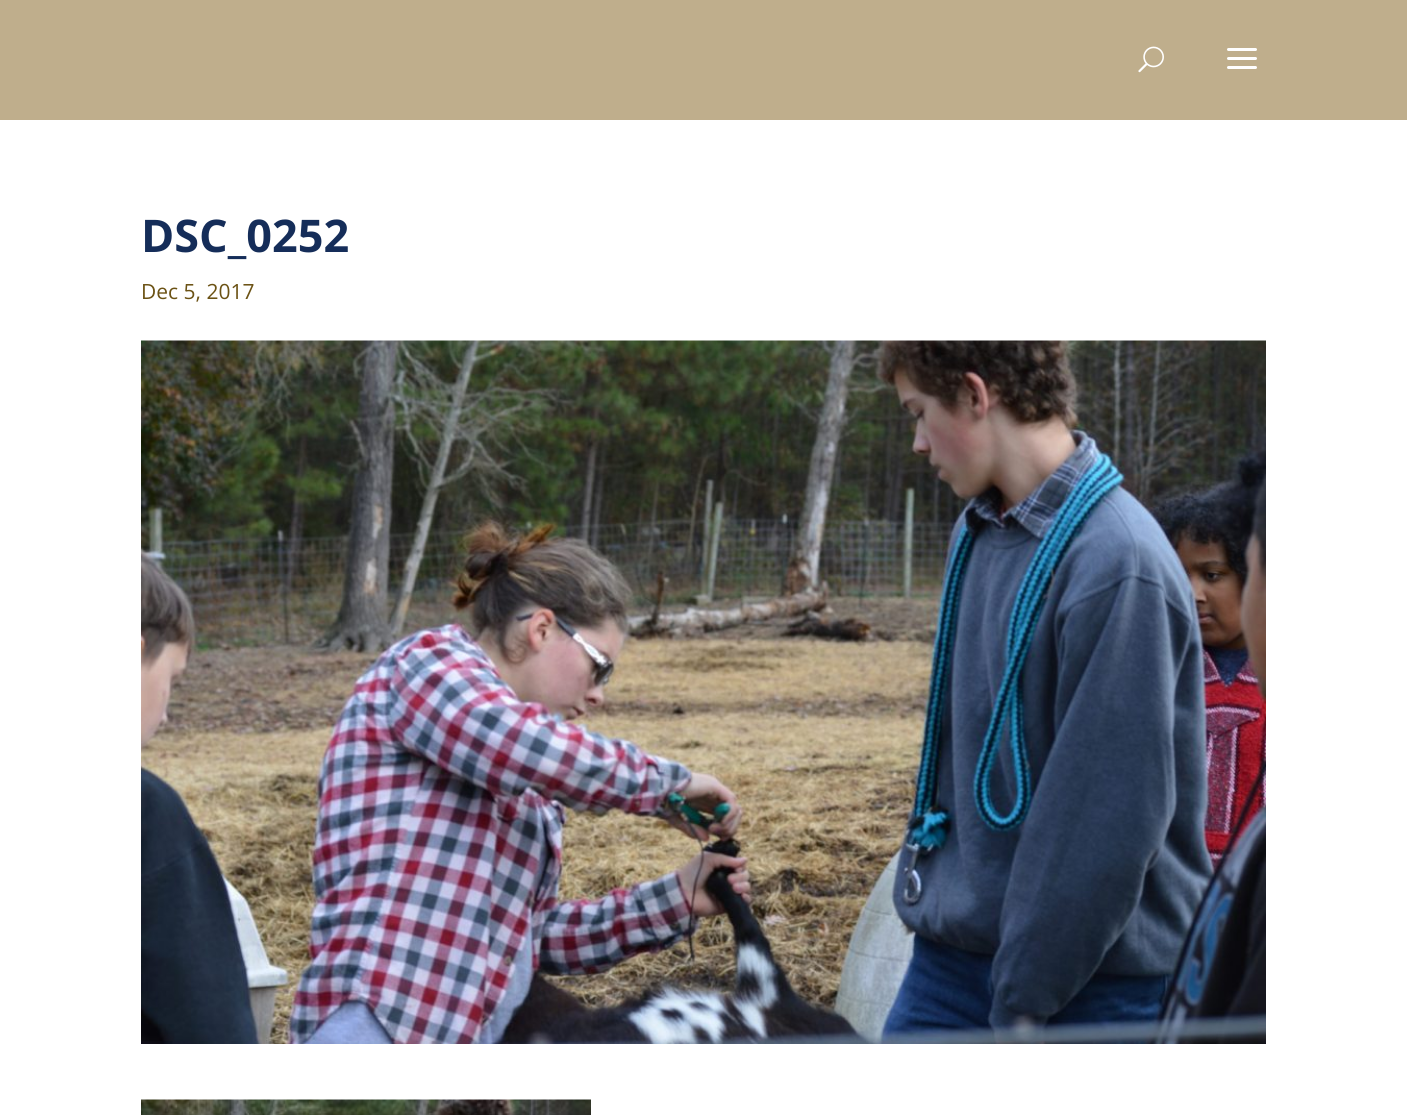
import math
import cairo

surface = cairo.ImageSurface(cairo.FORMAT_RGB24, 1407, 1115)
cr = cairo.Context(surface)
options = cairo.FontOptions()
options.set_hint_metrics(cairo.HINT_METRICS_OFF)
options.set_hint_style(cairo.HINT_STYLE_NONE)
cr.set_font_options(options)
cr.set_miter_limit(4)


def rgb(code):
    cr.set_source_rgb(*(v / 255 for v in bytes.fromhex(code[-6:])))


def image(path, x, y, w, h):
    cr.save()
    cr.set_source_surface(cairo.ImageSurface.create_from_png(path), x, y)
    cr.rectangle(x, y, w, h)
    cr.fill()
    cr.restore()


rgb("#ffffff")
cr.paint()
rgb("#bfae8c")
cr.rectangle(0, 0, 1407, 120)
cr.fill()
image("img/1.png", 1138, 46, 26, 27)
image("img/2.png", 1227, 48, 30, 21)
image("img/3.png", 141, 340, 1125, 704)
image("img/4.png", 141, 1099, 450, 16)
cr.select_font_face("Open Sans", cairo.FONT_SLANT_NORMAL, cairo.FONT_WEIGHT_BOLD)
cr.set_font_size(45)
rgb("#152d59")
cr.move_to(141, 252)
cr.show_text("DSC_0252")
cr.select_font_face("Open Sans")
cr.set_font_size(21)
rgb("#6b5214")
cr.move_to(141, 299)
cr.show_text("Dec 5, 2017")
surface.write_to_png("page.png")
